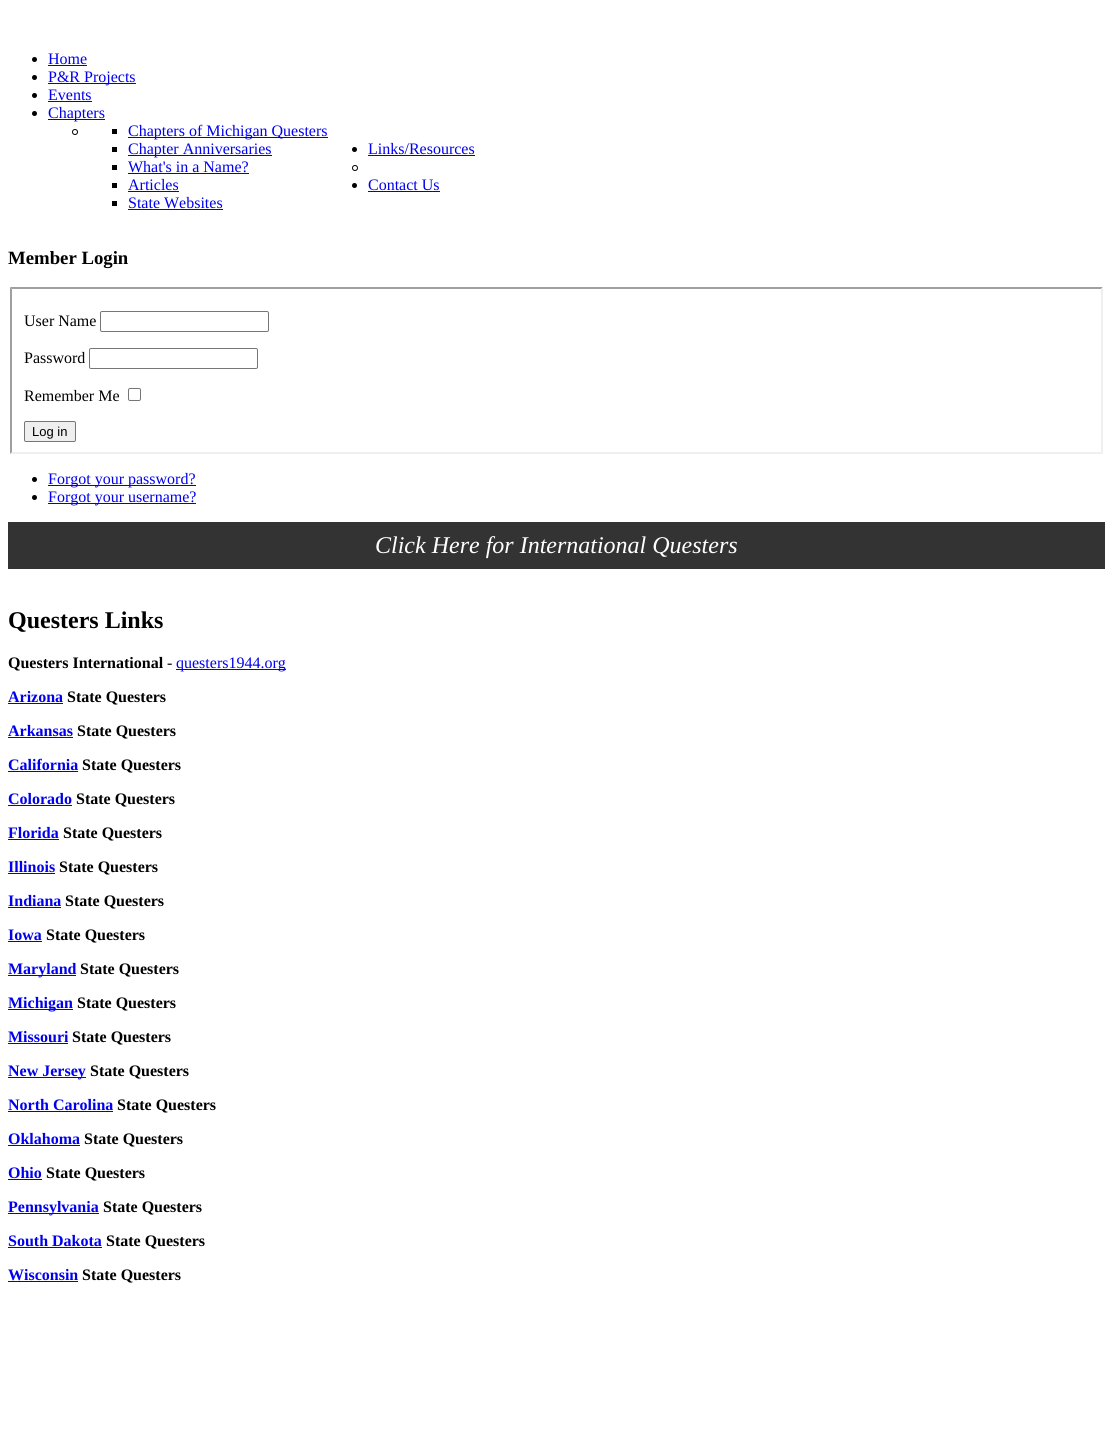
import math
import cairo

surface = cairo.ImageSurface(cairo.FORMAT_RGB24, 1113, 1440)
cr = cairo.Context(surface)
options = cairo.FontOptions()
options.set_hint_metrics(cairo.HINT_METRICS_OFF)
options.set_hint_style(cairo.HINT_STYLE_NONE)
cr.set_font_options(options)
cr.set_miter_limit(4)


def rgb(code):
    cr.set_source_rgb(*(v / 255 for v in bytes.fromhex(code[-6:])))


def rrect(x, y, w, h, r):
    cr.new_sub_path()
    for i, (u, v) in enumerate([(x + w - r, y + h - r), (x + r, y + h - r), (x + r, y + r), (x + w - r, y + r)]):
        cr.arc(u, v, r, i * math.pi / 2, (i + 1) * math.pi / 2)
    cr.close_path()


rgb("#ffffff")
cr.paint()
rgb("#000000")
cr.arc(34.5, 59.5, 2.5, 0, 2 * math.pi)
cr.fill()
rgb("#0000ee")
cr.rectangle(48, 65, 39, 1)
cr.fill()
rgb("#000000")
cr.arc(34.5, 77.5, 2.5, 0, 2 * math.pi)
cr.fill()
rgb("#0000ee")
cr.rectangle(48, 83, 88, 1)
cr.fill()
rgb("#000000")
cr.arc(34.5, 95.5, 2.5, 0, 2 * math.pi)
cr.fill()
rgb("#0000ee")
cr.rectangle(48, 101, 44, 1)
cr.fill()
rgb("#000000")
cr.arc(34.5, 113.5, 2.5, 0, 2 * math.pi)
cr.fill()
rgb("#0000ee")
cr.rectangle(48, 119, 57, 1)
cr.fill()
cr.arc(75, 132, 2.5, 0, 2 * math.pi)
rgb("#000000")
cr.set_line_width(1)
cr.stroke()
for x, y, w, h, color in [
    (112, 129, 5, 5, "#000000"),
    (128, 137, 200, 1, "#0000ee"),
    (112, 147, 5, 5, "#000000"),
    (128, 155, 144, 1, "#0000ee"),
    (112, 165, 5, 5, "#000000"),
    (128, 173, 121, 1, "#0000ee"),
]:
    rgb(color)
    cr.rectangle(x, y, w, h)
    cr.fill()
rgb("#000000")
cr.arc(354.5, 149.5, 2.5, 0, 2 * math.pi)
cr.fill()
rgb("#0000ee")
cr.rectangle(368, 155, 107, 1)
cr.fill()
cr.arc(355, 168, 2.5, 0, 2 * math.pi)
rgb("#000000")
cr.stroke()
for x, y, w, h, color in [
    (112, 183, 5, 5, "#000000"),
    (128, 191, 51, 1, "#0000ee"),
    (112, 201, 5, 5, "#000000"),
    (128, 209, 95, 1, "#0000ee"),
]:
    rgb(color)
    cr.rectangle(x, y, w, h)
    cr.fill()
rgb("#000000")
cr.arc(354.5, 185.5, 2.5, 0, 2 * math.pi)
cr.fill()
rgb("#0000ee")
cr.rectangle(368, 191, 72, 1)
cr.fill()
rgb("#9f9f9f")
cr.new_path()
cr.move_to(10, 287)
cr.line_to(1103, 287)
cr.line_to(1101, 289)
cr.line_to(12, 289)
cr.close_path()
cr.fill()
rgb("#efefef")
cr.new_path()
cr.move_to(1103, 287)
cr.line_to(1103, 454)
cr.line_to(1101, 452)
cr.line_to(1101, 289)
cr.close_path()
cr.fill()
cr.new_path()
cr.move_to(1103, 454)
cr.line_to(10, 454)
cr.line_to(12, 452)
cr.line_to(1101, 452)
cr.close_path()
cr.fill()
rgb("#9f9f9f")
cr.new_path()
cr.move_to(10, 454)
cr.line_to(10, 287)
cr.line_to(12, 289)
cr.line_to(12, 452)
cr.close_path()
cr.fill()
rrect(100.5, 311.5, 168, 20, 1.5)
rgb("#767676")
cr.stroke()
rrect(89.5, 348.5, 168, 20, 1.5)
cr.stroke()
rrect(128.5, 388.5, 12, 12, 1.5)
cr.stroke()
rgb("#efefef")
rrect(24.5, 421.5, 51, 20, 1.5)
cr.fill_preserve()
rgb("#767676")
cr.stroke()
rgb("#000000")
cr.arc(34.5, 479.5, 2.5, 0, 2 * math.pi)
cr.fill()
rgb("#0000ee")
cr.rectangle(48, 485, 148, 1)
cr.fill()
rgb("#000000")
cr.arc(34.5, 497.5, 2.5, 0, 2 * math.pi)
cr.fill()
for x, y, w, h, color in [
    (48, 503, 148, 1, "#0000ee"),
    (8, 522, 1097, 47, "#333333"),
    (176, 669, 110, 1, "#0000ee"),
    (8, 703, 55, 1, "#0000ee"),
    (8, 737, 65, 1, "#0000ee"),
    (8, 771, 70, 1, "#0000ee"),
    (8, 805, 64, 1, "#0000ee"),
    (8, 839, 51, 1, "#0000ee"),
    (8, 873, 47, 1, "#0000ee"),
    (8, 907, 53, 1, "#0000ee"),
    (8, 941, 34, 1, "#0000ee"),
    (8, 975, 68, 1, "#0000ee"),
    (8, 1009, 65, 1, "#0000ee"),
    (8, 1043, 60, 1, "#0000ee"),
    (8, 1077, 78, 1, "#0000ee"),
    (8, 1111, 105, 1, "#0000ee"),
    (8, 1145, 72, 1, "#0000ee"),
    (8, 1179, 34, 1, "#0000ee"),
    (8, 1213, 91, 1, "#0000ee"),
    (8, 1247, 94, 1, "#0000ee"),
    (8, 1281, 70, 1, "#0000ee"),
]:
    rgb(color)
    cr.rectangle(x, y, w, h)
    cr.fill()
cr.select_font_face("Liberation Serif")
cr.set_font_size(16)
for x, y, s in [
    (48, 64, "Home"),
    (48, 82, "P&R Projects"),
    (48, 100, "Events"),
    (48, 118, "Chapters"),
    (128, 136, "Chapters of Michigan Questers"),
    (128, 154, "Chapter Anniversaries"),
    (128, 172, "What's in a Name?"),
    (368, 154, "Links/Resources"),
    (128, 190, "Articles"),
    (128, 208, "State Websites"),
    (368, 190, "Contact Us"),
]:
    cr.move_to(x, y)
    cr.show_text(s)
cr.select_font_face("Liberation Serif", cairo.FONT_SLANT_NORMAL, cairo.FONT_WEIGHT_BOLD)
cr.set_font_size(18.75)
rgb("#000000")
cr.move_to(8, 264)
cr.show_text("Member Login")
cr.select_font_face("Liberation Serif")
cr.set_font_size(16)
for x, y, s in [
    (24, 326, "User Name"),
    (24, 363, "Password"),
    (24, 401, "Remember Me"),
]:
    cr.move_to(x, y)
    cr.show_text(s)
cr.select_font_face("Liberation Sans")
cr.set_font_size(13)
cr.move_to(32, 436)
cr.show_text("Log in")
cr.select_font_face("Liberation Serif")
cr.set_font_size(16)
rgb("#0000ee")
cr.move_to(48, 484)
cr.show_text("Forgot your password?")
cr.move_to(48, 502)
cr.show_text("Forgot your username?")
cr.select_font_face("Liberation Serif", cairo.FONT_SLANT_ITALIC)
cr.set_font_size(24)
rgb("#ffffff")
cr.move_to(375, 553)
cr.show_text("Click Here for International Questers")
cr.select_font_face("Liberation Serif", cairo.FONT_SLANT_NORMAL, cairo.FONT_WEIGHT_BOLD)
rgb("#000000")
cr.move_to(8, 628)
cr.show_text("Questers Links")
cr.set_font_size(16)
cr.move_to(8, 668)
cr.show_text("Questers International")
cr.select_font_face("Liberation Serif")
cr.move_to(167, 668)
cr.show_text("-")
rgb("#0000ee")
cr.move_to(176, 668)
cr.show_text("questers1944.org")
cr.select_font_face("Liberation Serif", cairo.FONT_SLANT_NORMAL, cairo.FONT_WEIGHT_BOLD)
cr.move_to(8, 702)
cr.show_text("Arizona")
rgb("#000000")
cr.move_to(67, 702)
cr.show_text("State Questers")
rgb("#0000ee")
cr.move_to(8, 736)
cr.show_text("Arkansas")
rgb("#000000")
cr.move_to(77, 736)
cr.show_text("State Questers")
rgb("#0000ee")
cr.move_to(8, 770)
cr.show_text("California")
rgb("#000000")
cr.move_to(82, 770)
cr.show_text("State Questers")
rgb("#0000ee")
cr.move_to(8, 804)
cr.show_text("Colorado")
rgb("#000000")
cr.move_to(76, 804)
cr.show_text("State Questers")
rgb("#0000ee")
cr.move_to(8, 838)
cr.show_text("Florida")
rgb("#000000")
cr.move_to(63, 838)
cr.show_text("State Questers")
rgb("#0000ee")
cr.move_to(8, 872)
cr.show_text("Illinois")
rgb("#000000")
cr.move_to(59, 872)
cr.show_text("State Questers")
rgb("#0000ee")
cr.move_to(8, 906)
cr.show_text("Indiana")
rgb("#000000")
cr.move_to(65, 906)
cr.show_text("State Questers")
rgb("#0000ee")
cr.move_to(8, 940)
cr.show_text("Iowa")
rgb("#000000")
cr.move_to(46, 940)
cr.show_text("State Questers")
rgb("#0000ee")
cr.move_to(8, 974)
cr.show_text("Maryland")
rgb("#000000")
cr.move_to(80, 974)
cr.show_text("State Questers")
rgb("#0000ee")
cr.move_to(8, 1008)
cr.show_text("Michigan")
rgb("#000000")
cr.move_to(77, 1008)
cr.show_text("State Questers")
rgb("#0000ee")
cr.move_to(8, 1042)
cr.show_text("Missouri")
rgb("#000000")
cr.move_to(72, 1042)
cr.show_text("State Questers")
rgb("#0000ee")
cr.move_to(8, 1076)
cr.show_text("New Jersey")
rgb("#000000")
cr.move_to(90, 1076)
cr.show_text("State Questers")
rgb("#0000ee")
cr.move_to(8, 1110)
cr.show_text("North Carolina")
rgb("#000000")
cr.move_to(117, 1110)
cr.show_text("State Questers")
rgb("#0000ee")
cr.move_to(8, 1144)
cr.show_text("Oklahoma")
rgb("#000000")
cr.move_to(84, 1144)
cr.show_text("State Questers")
rgb("#0000ee")
cr.move_to(8, 1178)
cr.show_text("Ohio")
rgb("#000000")
cr.move_to(46, 1178)
cr.show_text("State Questers")
rgb("#0000ee")
cr.move_to(8, 1212)
cr.show_text("Pennsylvania")
rgb("#000000")
cr.move_to(103, 1212)
cr.show_text("State Questers")
rgb("#0000ee")
cr.move_to(8, 1246)
cr.show_text("South Dakota")
rgb("#000000")
cr.move_to(106, 1246)
cr.show_text("State Questers")
rgb("#0000ee")
cr.move_to(8, 1280)
cr.show_text("Wisconsin")
rgb("#000000")
cr.move_to(82, 1280)
cr.show_text("State Questers")
surface.write_to_png("page.png")
